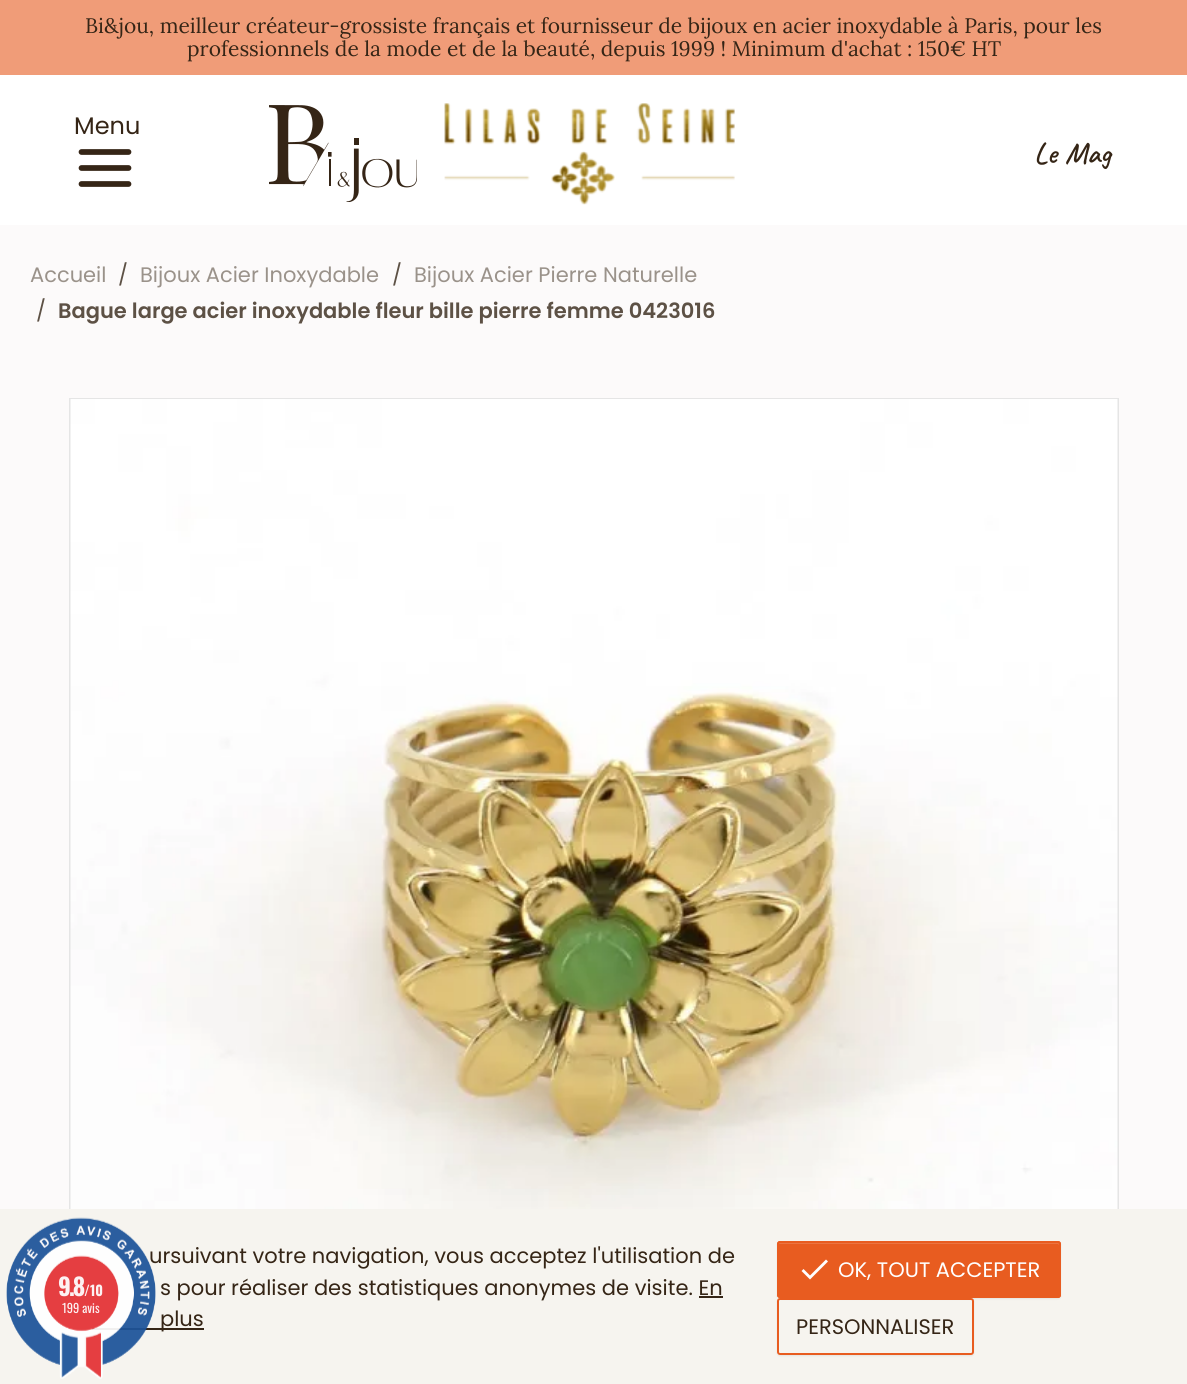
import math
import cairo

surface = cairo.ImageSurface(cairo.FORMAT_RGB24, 1187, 1384)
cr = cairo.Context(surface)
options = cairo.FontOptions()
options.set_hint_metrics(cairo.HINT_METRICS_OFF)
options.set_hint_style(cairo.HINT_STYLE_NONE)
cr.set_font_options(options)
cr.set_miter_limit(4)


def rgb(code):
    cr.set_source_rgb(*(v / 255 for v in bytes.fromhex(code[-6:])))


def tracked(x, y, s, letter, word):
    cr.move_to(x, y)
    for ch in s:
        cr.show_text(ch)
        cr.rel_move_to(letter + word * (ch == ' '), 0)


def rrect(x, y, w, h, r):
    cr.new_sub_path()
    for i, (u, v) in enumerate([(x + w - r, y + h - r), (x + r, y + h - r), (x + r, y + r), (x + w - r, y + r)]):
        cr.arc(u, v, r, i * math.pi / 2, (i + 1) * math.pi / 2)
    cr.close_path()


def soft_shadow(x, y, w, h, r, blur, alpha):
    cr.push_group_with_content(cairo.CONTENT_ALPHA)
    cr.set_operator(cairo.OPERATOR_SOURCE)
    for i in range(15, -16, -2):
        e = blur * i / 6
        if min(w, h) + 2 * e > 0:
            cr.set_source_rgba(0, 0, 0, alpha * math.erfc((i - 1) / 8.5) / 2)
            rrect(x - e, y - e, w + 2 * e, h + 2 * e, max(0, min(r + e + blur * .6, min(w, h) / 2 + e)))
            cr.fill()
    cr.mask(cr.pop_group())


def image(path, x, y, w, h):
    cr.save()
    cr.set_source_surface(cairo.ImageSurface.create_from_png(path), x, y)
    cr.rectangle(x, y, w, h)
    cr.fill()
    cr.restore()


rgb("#fcfafa")
cr.paint()
rgb("#f09c78")
cr.rectangle(0, 0, 1187, 75)
cr.fill()
rgb("#ffffff")
cr.rectangle(0, 75, 1187, 150)
cr.fill()
cr.new_path()
cr.move_to(81.5, 168)
cr.line_to(128.5, 168)
cr.move_to(81.5, 152)
cr.line_to(128.5, 152)
cr.move_to(81.5, 184)
cr.line_to(128.5, 184)
rgb("#352516")
cr.set_line_width(5.7)
cr.set_line_cap(cairo.LINE_CAP_ROUND)
cr.set_line_join(cairo.LINE_JOIN_ROUND)
cr.stroke()
image("img/1.png", 269, 105, 148, 97)
image("img/2.png", 444, 103, 291, 102)
cr.rectangle(70, 399, 1048, 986)
rgb("#e5e5e5")
cr.set_line_width(2)
cr.set_line_cap(cairo.LINE_CAP_BUTT)
cr.set_line_join(cairo.LINE_JOIN_MITER)
cr.stroke()
image("img/3.png", 70, 399, 1048, 810)
for x, y, w, h, color in [
    (0, 1209, 1187, 175, "#f6f4ef"),
    (699, 1296, 24, 2, "#352516"),
    (92, 1328, 112, 2, "#352516"),
]:
    rgb(color)
    cr.rectangle(x, y, w, h)
    cr.fill()
rgb("#000000")
soft_shadow(777, 1242, 284, 57, 3, 1, 0.07)
rgb("#e85c20")
rrect(777, 1241, 284, 57, 3)
cr.fill()
rgb("#eb7441")
cr.new_path()
cr.move_to(780, 1244)
cr.line_to(1058, 1244)
cr.line_to(1059, 1245)
cr.line_to(1059, 1244)
cr.curve_to(1059, 1243, 1058, 1242, 1058, 1242)
cr.line_to(780, 1242)
cr.curve_to(780, 1242, 779, 1243, 779, 1244)
cr.close_path()
cr.fill()
rrect(778, 1242, 282, 55, 2)
rgb("#e85c20")
cr.stroke()
rgb("#ffffff")
cr.new_path()
cr.move_to(810, 1275.5)
cr.line_to(826, 1259.5)
cr.line_to(828, 1261.5)
cr.line_to(810, 1279.5)
cr.line_to(801.5, 1271)
cr.line_to(803.5, 1269)
cr.close_path()
cr.fill()
cr.save()
cr.set_fill_rule(cairo.FILL_RULE_EVEN_ODD)
cr.new_path()
cr.move_to(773, 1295)
cr.line_to(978, 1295)
cr.line_to(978, 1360)
cr.line_to(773, 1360)
cr.close_path()
cr.move_to(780, 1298)
cr.line_to(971, 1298)
cr.curve_to(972.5, 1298, 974, 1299.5, 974, 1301)
cr.line_to(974, 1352)
cr.curve_to(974, 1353.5, 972.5, 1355, 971, 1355)
cr.line_to(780, 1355)
cr.curve_to(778.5, 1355, 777, 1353.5, 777, 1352)
cr.line_to(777, 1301)
cr.curve_to(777, 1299.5, 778.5, 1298, 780, 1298)
cr.close_path()
cr.clip()
rgb("#000000")
soft_shadow(777, 1299, 197, 57, 3, 1, 0.07)
cr.restore()
cr.set_source_rgba(1, 1, 1, 0.15)
cr.new_path()
cr.move_to(780, 1300)
cr.line_to(970, 1300)
cr.line_to(972, 1301)
cr.line_to(972, 1302)
cr.line_to(972, 1300)
cr.curve_to(972, 1300, 971, 1299, 970, 1299)
cr.line_to(780, 1299)
cr.curve_to(780, 1299, 779, 1300, 779, 1300)
cr.close_path()
cr.fill()
rrect(778, 1299, 195, 55, 2)
rgb("#e85c20")
cr.stroke()
cr.select_font_face("Lora")
cr.set_font_size(21)
rgb("#352516")
cr.move_to(85, 33)
cr.show_text("Bi&jou, meilleur créateur-grossiste français et fournisseur de bijoux en acier inoxydable à Paris, pour les")
cr.move_to(187, 56)
cr.show_text("professionnels de la mode et de la beauté, depuis 1999 ! Minimum d'achat : 150€ HT")
cr.select_font_face("Poppins")
cr.set_font_size(24)
cr.move_to(74, 134)
cr.show_text("Menu")
cr.select_font_face("Caveat SemiBold")
cr.set_font_size(30)
tracked(1034, 163, "Le Mag", 0, 1)
cr.select_font_face("Poppins")
cr.set_font_size(21)
rgb("#9a928a")
cr.move_to(30, 282)
cr.show_text("Accueil")
rgb("#5d5145")
cr.move_to(118, 282)
cr.show_text("/")
rgb("#9a928a")
cr.move_to(140, 282)
cr.show_text("Bijoux Acier Inoxydable")
rgb("#5d5145")
cr.move_to(392, 282)
cr.show_text("/")
rgb("#9a928a")
cr.move_to(414, 282)
cr.show_text("Bijoux Acier Pierre Naturelle")
rgb("#5d5145")
cr.move_to(36, 318)
cr.show_text("/")
cr.select_font_face("Poppins SemiBold")
cr.move_to(58, 318)
cr.show_text("Bague large acier inoxydable fleur bille pierre femme 0423016")
cr.select_font_face("Poppins")
rgb("#352516")
cr.move_to(149, 1263)
cr.show_text("ursuivant votre navigation, vous acceptez l'utilisation de")
image("img/4.png", 6, 1217, 150, 162)
cr.select_font_face("Oswald")
cr.set_font_size(12.5)
rgb("#fdf1f2")
cr.move_to(62, 1313)
cr.show_text("199 avis")
cr.select_font_face("Oswald", cairo.FONT_SLANT_NORMAL, cairo.FONT_WEIGHT_BOLD)
cr.set_font_size(24)
tracked(58, 1296, "9.8", -2, 0)
cr.set_font_size(14)
cr.move_to(84, 1296)
cr.show_text("/10")
cr.select_font_face("Poppins")
cr.set_font_size(21)
rgb("#352516")
cr.move_to(160, 1295)
cr.show_text("s pour réaliser des statistiques anonymes de visite. En")
cr.move_to(160, 1326)
cr.show_text("plus")
rgb("#ffffff")
cr.move_to(838, 1277)
cr.show_text("OK, TOUT ACCEPTER")
rgb("#352516")
cr.move_to(796, 1334)
cr.show_text("PERSONNALISER")
surface.write_to_png("page.png")
